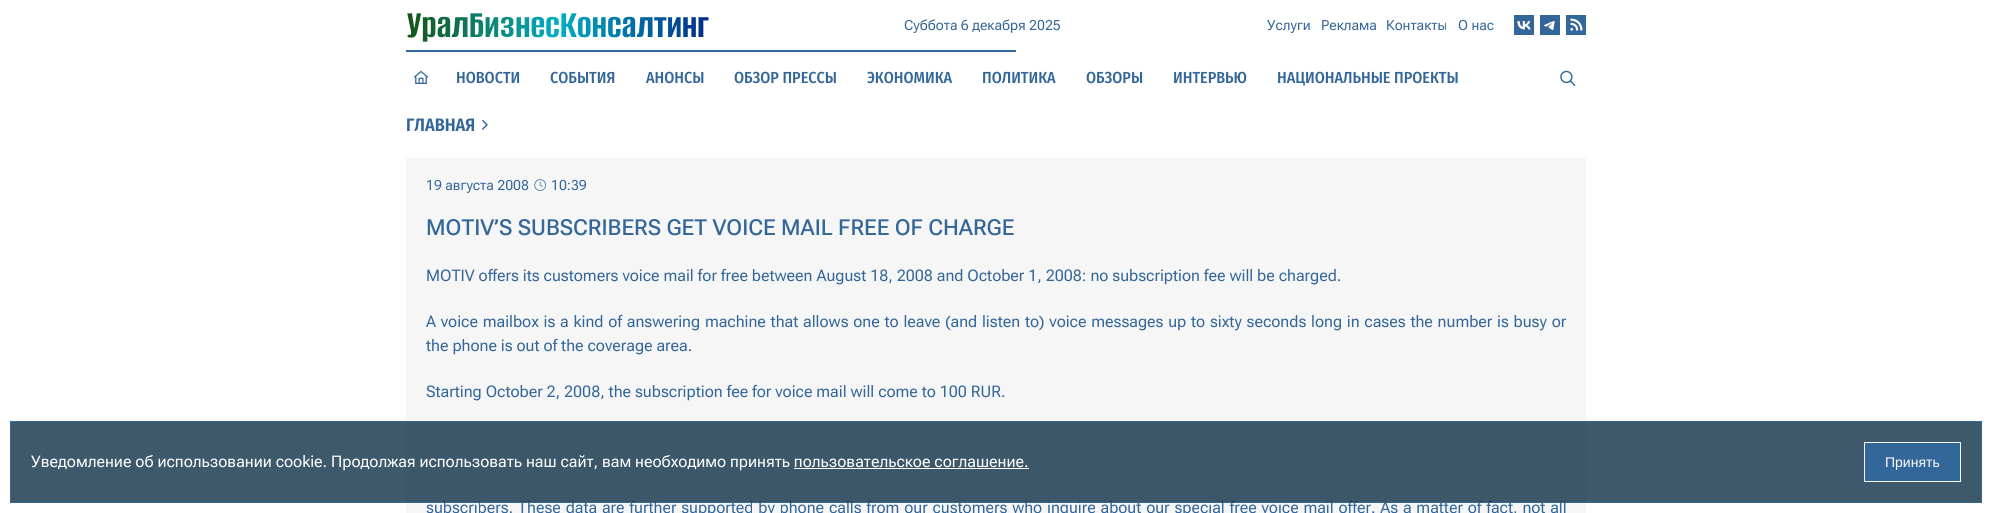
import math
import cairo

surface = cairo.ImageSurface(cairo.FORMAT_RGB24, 1992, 513)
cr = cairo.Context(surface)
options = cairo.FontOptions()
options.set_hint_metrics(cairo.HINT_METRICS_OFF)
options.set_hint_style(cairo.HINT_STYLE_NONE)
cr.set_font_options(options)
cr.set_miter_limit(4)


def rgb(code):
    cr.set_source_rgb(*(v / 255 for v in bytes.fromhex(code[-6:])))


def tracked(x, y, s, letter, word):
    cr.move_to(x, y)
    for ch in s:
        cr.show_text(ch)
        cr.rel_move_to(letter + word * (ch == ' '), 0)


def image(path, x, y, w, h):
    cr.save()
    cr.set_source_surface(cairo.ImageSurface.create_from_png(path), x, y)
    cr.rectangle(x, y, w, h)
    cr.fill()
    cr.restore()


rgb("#ffffff")
cr.paint()
image("img/1.png", 407, 13, 302, 29)
image("img/2.png", 1514, 15, 20, 20)
image("img/3.png", 1540, 15, 20, 20)
image("img/4.png", 1566, 15, 20, 20)
rgb("#336699")
cr.rectangle(406, 50, 610, 2)
cr.fill()
image("img/5.png", 413, 70, 16, 14)
image("img/6.png", 1560, 70, 16, 16)
image("img/7.png", 482, 119, 6, 11)
rgb("#f6f6f6")
cr.rectangle(406, 158, 1180, 355)
cr.fill()
image("img/8.png", 534, 179, 12, 12)
cr.select_font_face("Roboto Flex")
cr.set_font_size(14)
rgb("#336699")
for x, y, s in [
    (904, 30, "Суббота 6 декабря 2025"),
    (1267, 30, "Услуги"),
    (1321, 30, "Реклама"),
    (1386, 30, "Контакты"),
    (1458, 30, "О нас"),
]:
    cr.move_to(x, y)
    cr.show_text(s)
cr.select_font_face("Fira Sans Condensed Medium")
cr.set_font_size(16)
for x, y, s in [
    (456, 83, "НОВОСТИ"),
    (550, 83, "СОБЫТИЯ"),
    (646, 83, "АНОНСЫ"),
    (734, 83, "ОБЗОР ПРЕССЫ"),
    (867, 83, "ЭКОНОМИКА"),
    (982, 83, "ПОЛИТИКА"),
    (1086, 83, "ОБЗОРЫ"),
    (1173, 83, "ИНТЕРВЬЮ"),
    (1277, 83, "НАЦИОНАЛЬНЫЕ ПРОЕКТЫ"),
]:
    cr.move_to(x, y)
    cr.show_text(s)
cr.select_font_face("Fira Sans Condensed SemiBold")
cr.set_font_size(18)
cr.move_to(406, 131)
cr.show_text("ГЛАВНАЯ")
cr.select_font_face("Roboto Flex")
cr.set_font_size(14)
cr.move_to(426, 190)
cr.show_text("19 августа 2008")
cr.move_to(551, 190)
cr.show_text("10:39")
cr.select_font_face("Roboto Flex Medium")
cr.set_font_size(22)
cr.move_to(426, 235)
cr.show_text("MOTIV’S SUBSCRIBERS GET VOICE MAIL FREE OF CHARGE")
cr.select_font_face("Roboto Flex")
cr.set_font_size(16)
cr.move_to(426, 281)
cr.show_text("MOTIV offers its customers voice mail for free between August 18, 2008 and October 1, 2008: no subscription fee will be charged.")
tracked(426, 327, "A voice mailbox is a kind of answering machine that allows one to leave (and listen to) voice messages up to sixty seconds long in cases the number is busy or", 0, 0.85)
cr.move_to(426, 351)
cr.show_text("the phone is out of the coverage area.")
cr.move_to(426, 397)
cr.show_text("Starting October 2, 2008, the subscription fee for voice mail will come to 100 RUR.")
tracked(426, 513, "subscribers. These data are further supported by phone calls from our customers who inquire about our special free voice mail offer. As a matter of fact, not all", 0, 0.9)
cr.set_source_rgba(0.055, 0.188, 0.278, 0.8)
cr.rectangle(10.5, 421.5, 1971, 81)
cr.fill_preserve()
rgb("#336699")
cr.set_line_width(1)
cr.stroke()
rgb("#ffffff")
cr.move_to(31, 467)
cr.show_text("Уведомление об использовании cookie. Продолжая использовать наш сайт, вам необходимо принять пользовательское соглашение.")
cr.rectangle(794, 468, 235, 1)
cr.fill()
rgb("#336699")
cr.rectangle(1864.5, 442.5, 96, 39)
cr.fill_preserve()
rgb("#f6f6f6")
cr.stroke()
cr.select_font_face("Liberation Sans")
cr.set_font_size(14)
rgb("#ffffff")
cr.move_to(1885, 467)
cr.show_text("Принять")
surface.write_to_png("page.png")
